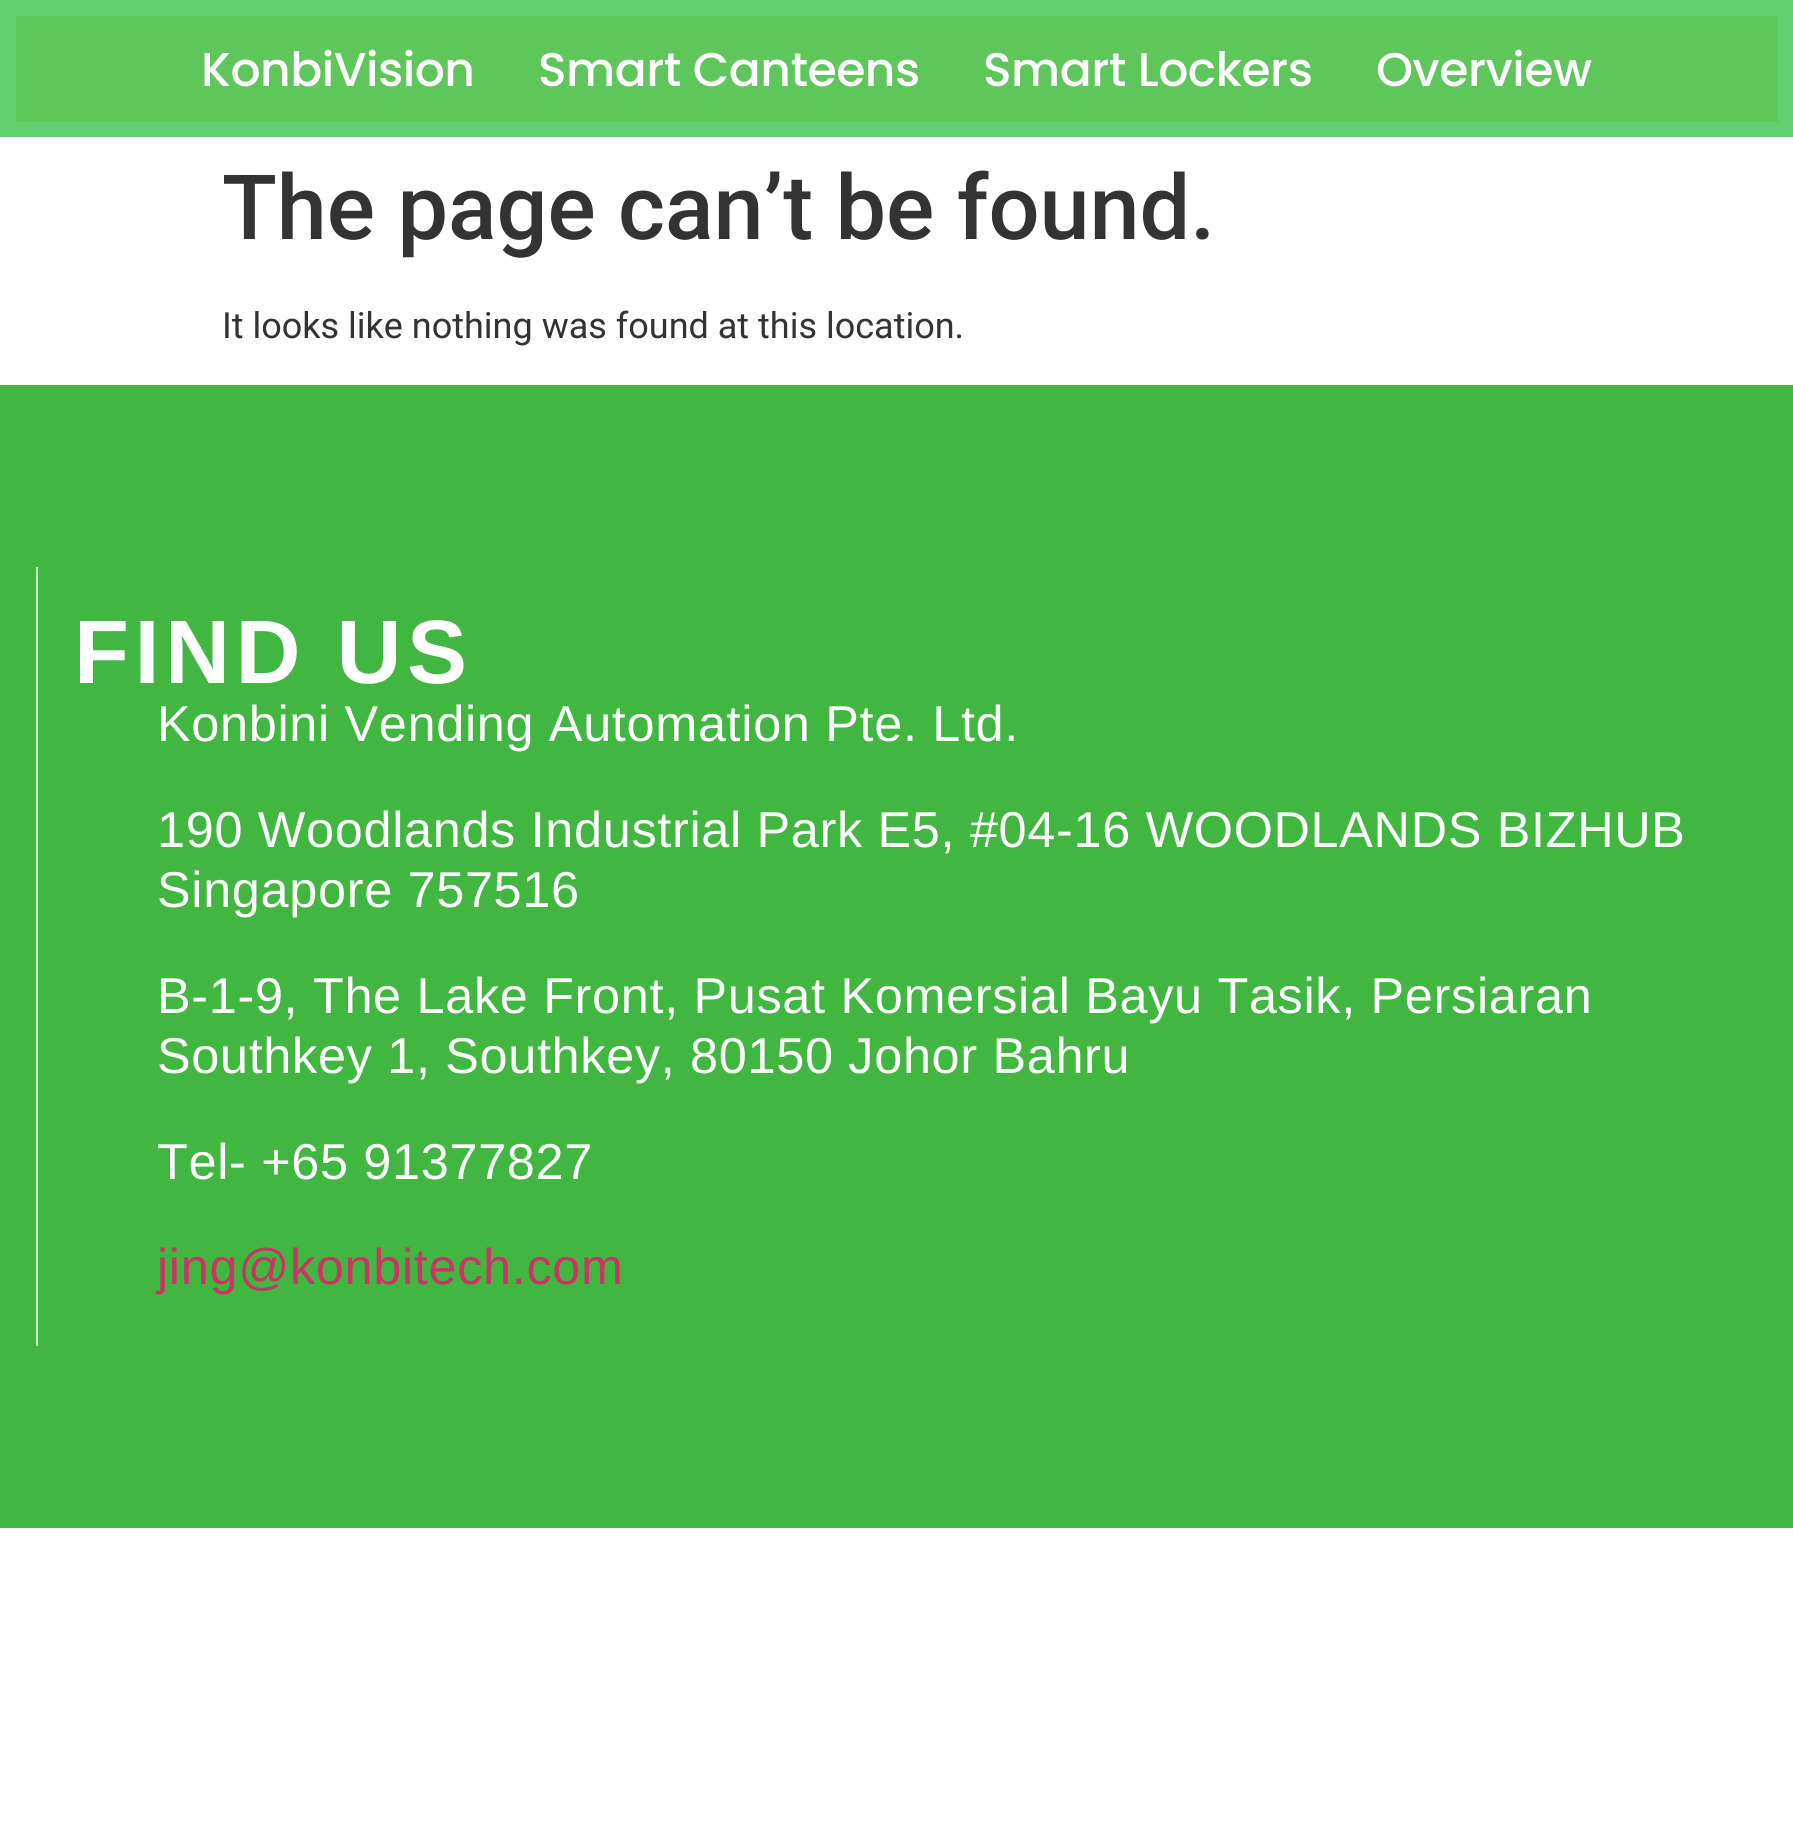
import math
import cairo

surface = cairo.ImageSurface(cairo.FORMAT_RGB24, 1793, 1834)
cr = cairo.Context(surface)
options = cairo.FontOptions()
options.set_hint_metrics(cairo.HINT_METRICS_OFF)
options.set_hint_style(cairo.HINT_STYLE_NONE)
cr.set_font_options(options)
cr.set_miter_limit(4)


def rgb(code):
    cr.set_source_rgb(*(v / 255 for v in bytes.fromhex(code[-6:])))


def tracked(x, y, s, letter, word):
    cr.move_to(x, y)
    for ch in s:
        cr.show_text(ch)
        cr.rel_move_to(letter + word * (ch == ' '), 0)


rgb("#ffffff")
cr.paint()
for x, y, w, h, color in [
    (0, 0, 1793, 137, "#61ce70"),
    (16, 16, 1762, 106, "#5ec65b"),
    (0, 385, 1793, 1143, "#41b742"),
    (36, 567, 2, 779, "#c6e9c6"),
]:
    rgb(color)
    cr.rectangle(x, y, w, h)
    cr.fill()
cr.select_font_face("Poppins Medium")
cr.set_font_size(47.25)
rgb("#ffffff")
for x, y, s in [
    (201, 86, "KonbiVision"),
    (538, 86, "Smart Canteens"),
    (983, 86, "Smart Lockers"),
    (1376, 86, "Overview"),
]:
    tracked(x, y, s, -0.5, 0)
cr.select_font_face("Roboto Medium")
cr.set_font_size(90)
rgb("#333333")
cr.move_to(222, 239)
cr.show_text("The page can’t be found.")
cr.select_font_face("Roboto")
cr.set_font_size(36)
cr.move_to(222, 338)
cr.show_text("It looks like nothing was found at this location.")
cr.select_font_face("Liberation Sans", cairo.FONT_SLANT_NORMAL, cairo.FONT_WEIGHT_BOLD)
cr.set_font_size(90)
rgb("#ffffff")
tracked(74, 683, "FIND US", 5.5, 0)
cr.select_font_face("Liberation Sans")
cr.set_font_size(50.4)
for x, y, s in [
    (157, 741, "Konbini Vending Automation Pte. Ltd."),
    (157, 847, "190 Woodlands Industrial Park E5, #04-16 WOODLANDS BIZHUB"),
    (157, 907, "Singapore 757516"),
    (157, 1013, "B-1-9, The Lake Front, Pusat Komersial Bayu Tasik, Persiaran"),
    (157, 1073, "Southkey 1, Southkey, 80150 Johor Bahru"),
    (157, 1179, "Tel- +65 91377827"),
]:
    tracked(x, y, s, 0.67, 0)
rgb("#cc3366")
tracked(157, 1284, "jing@konbitech.com", 0.67, 0)
surface.write_to_png("page.png")
